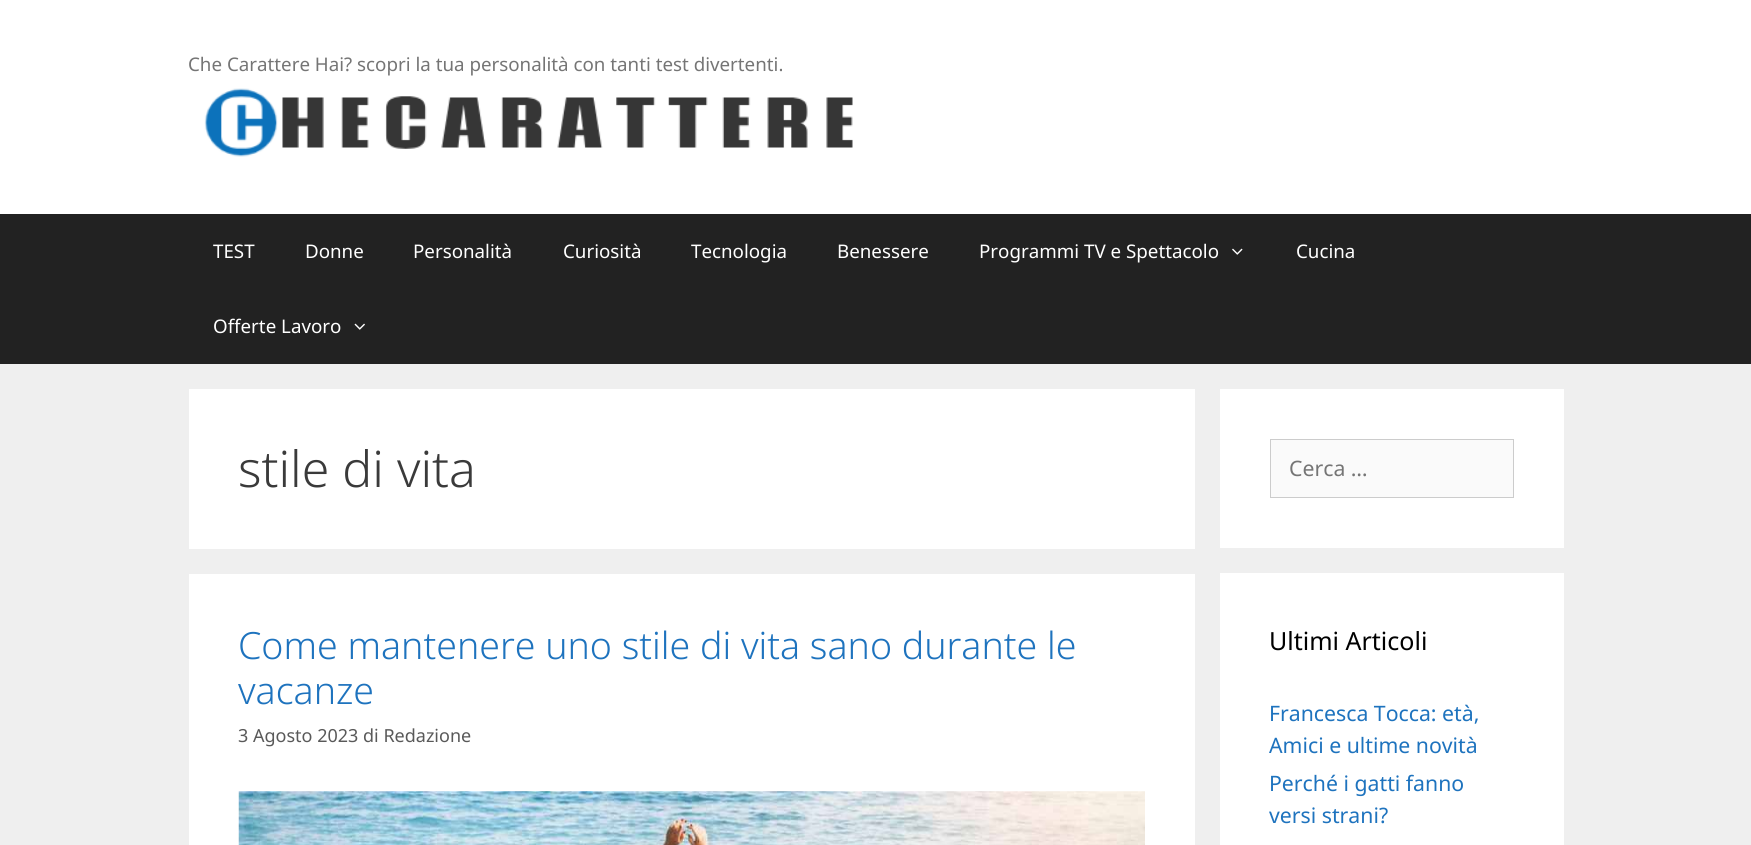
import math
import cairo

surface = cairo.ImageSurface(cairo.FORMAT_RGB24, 1751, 845)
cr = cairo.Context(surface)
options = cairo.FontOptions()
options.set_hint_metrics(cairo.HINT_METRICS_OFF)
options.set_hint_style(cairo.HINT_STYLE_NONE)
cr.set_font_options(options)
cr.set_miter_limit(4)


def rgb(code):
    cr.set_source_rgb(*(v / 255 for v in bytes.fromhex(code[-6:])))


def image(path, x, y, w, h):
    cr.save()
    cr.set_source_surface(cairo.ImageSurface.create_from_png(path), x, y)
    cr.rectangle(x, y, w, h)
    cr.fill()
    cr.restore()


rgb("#efefef")
cr.paint()
rgb("#ffffff")
cr.rectangle(0, 0, 1751, 214)
cr.fill()
image("img/1.png", 204, 88, 649, 69)
rgb("#222222")
cr.rectangle(0, 214, 1751, 150)
cr.fill()
image("img/2.png", 1232, 248, 11, 7)
image("img/3.png", 354, 323, 11, 7)
rgb("#ffffff")
cr.rectangle(189, 389, 1006, 160)
cr.fill()
cr.rectangle(189, 574, 1006, 271)
cr.fill()
image("img/4.png", 238, 791, 907, 54)
cr.rectangle(1220, 389, 344, 159)
cr.fill()
rgb("#fafafa")
cr.rectangle(1270.5, 439.5, 243, 58)
cr.fill_preserve()
rgb("#cccccc")
cr.set_line_width(1)
cr.stroke()
rgb("#ffffff")
cr.rectangle(1220, 573, 344, 272)
cr.fill()
cr.select_font_face("Noto Sans")
cr.set_font_size(18.75)
rgb("#757575")
cr.move_to(188, 71)
cr.show_text("Che Carattere Hai? scopri la tua personalità con tanti test divertenti.")
rgb("#ffffff")
for x, y, s in [
    (213, 258, "TEST"),
    (305, 258, "Donne"),
    (413, 258, "Personalità"),
    (563, 258, "Curiosità"),
    (691, 258, "Tecnologia"),
    (837, 258, "Benessere"),
    (979, 258, "Programmi TV e Spettacolo"),
    (1296, 258, "Cucina"),
    (213, 333, "Offerte Lavoro"),
]:
    cr.move_to(x, y)
    cr.show_text(s)
cr.select_font_face("Noto Sans Light")
cr.set_font_size(50)
rgb("#3a3a3a")
cr.move_to(238, 487)
cr.show_text("stile di vita")
cr.set_font_size(37.5)
rgb("#1e73be")
cr.move_to(238, 659)
cr.show_text("Come mantenere uno stile di vita sano durante le")
cr.move_to(238, 704)
cr.show_text("vacanze")
cr.select_font_face("Noto Sans")
cr.set_font_size(18)
rgb("#595959")
cr.move_to(238, 742)
cr.show_text("3 Agosto 2023 di Redazione")
cr.set_font_size(21.25)
rgb("#757575")
cr.move_to(1289, 476)
cr.show_text("Cerca …")
cr.set_font_size(25)
rgb("#000000")
cr.move_to(1269, 650)
cr.show_text("Ultimi Articoli")
cr.set_font_size(21.25)
rgb("#1e73be")
for x, y, s in [
    (1269, 721, "Francesca Tocca: età,"),
    (1269, 753, "Amici e ultime novità"),
    (1269, 791, "Perché i gatti fanno"),
    (1269, 823, "versi strani?"),
]:
    cr.move_to(x, y)
    cr.show_text(s)
surface.write_to_png("page.png")
